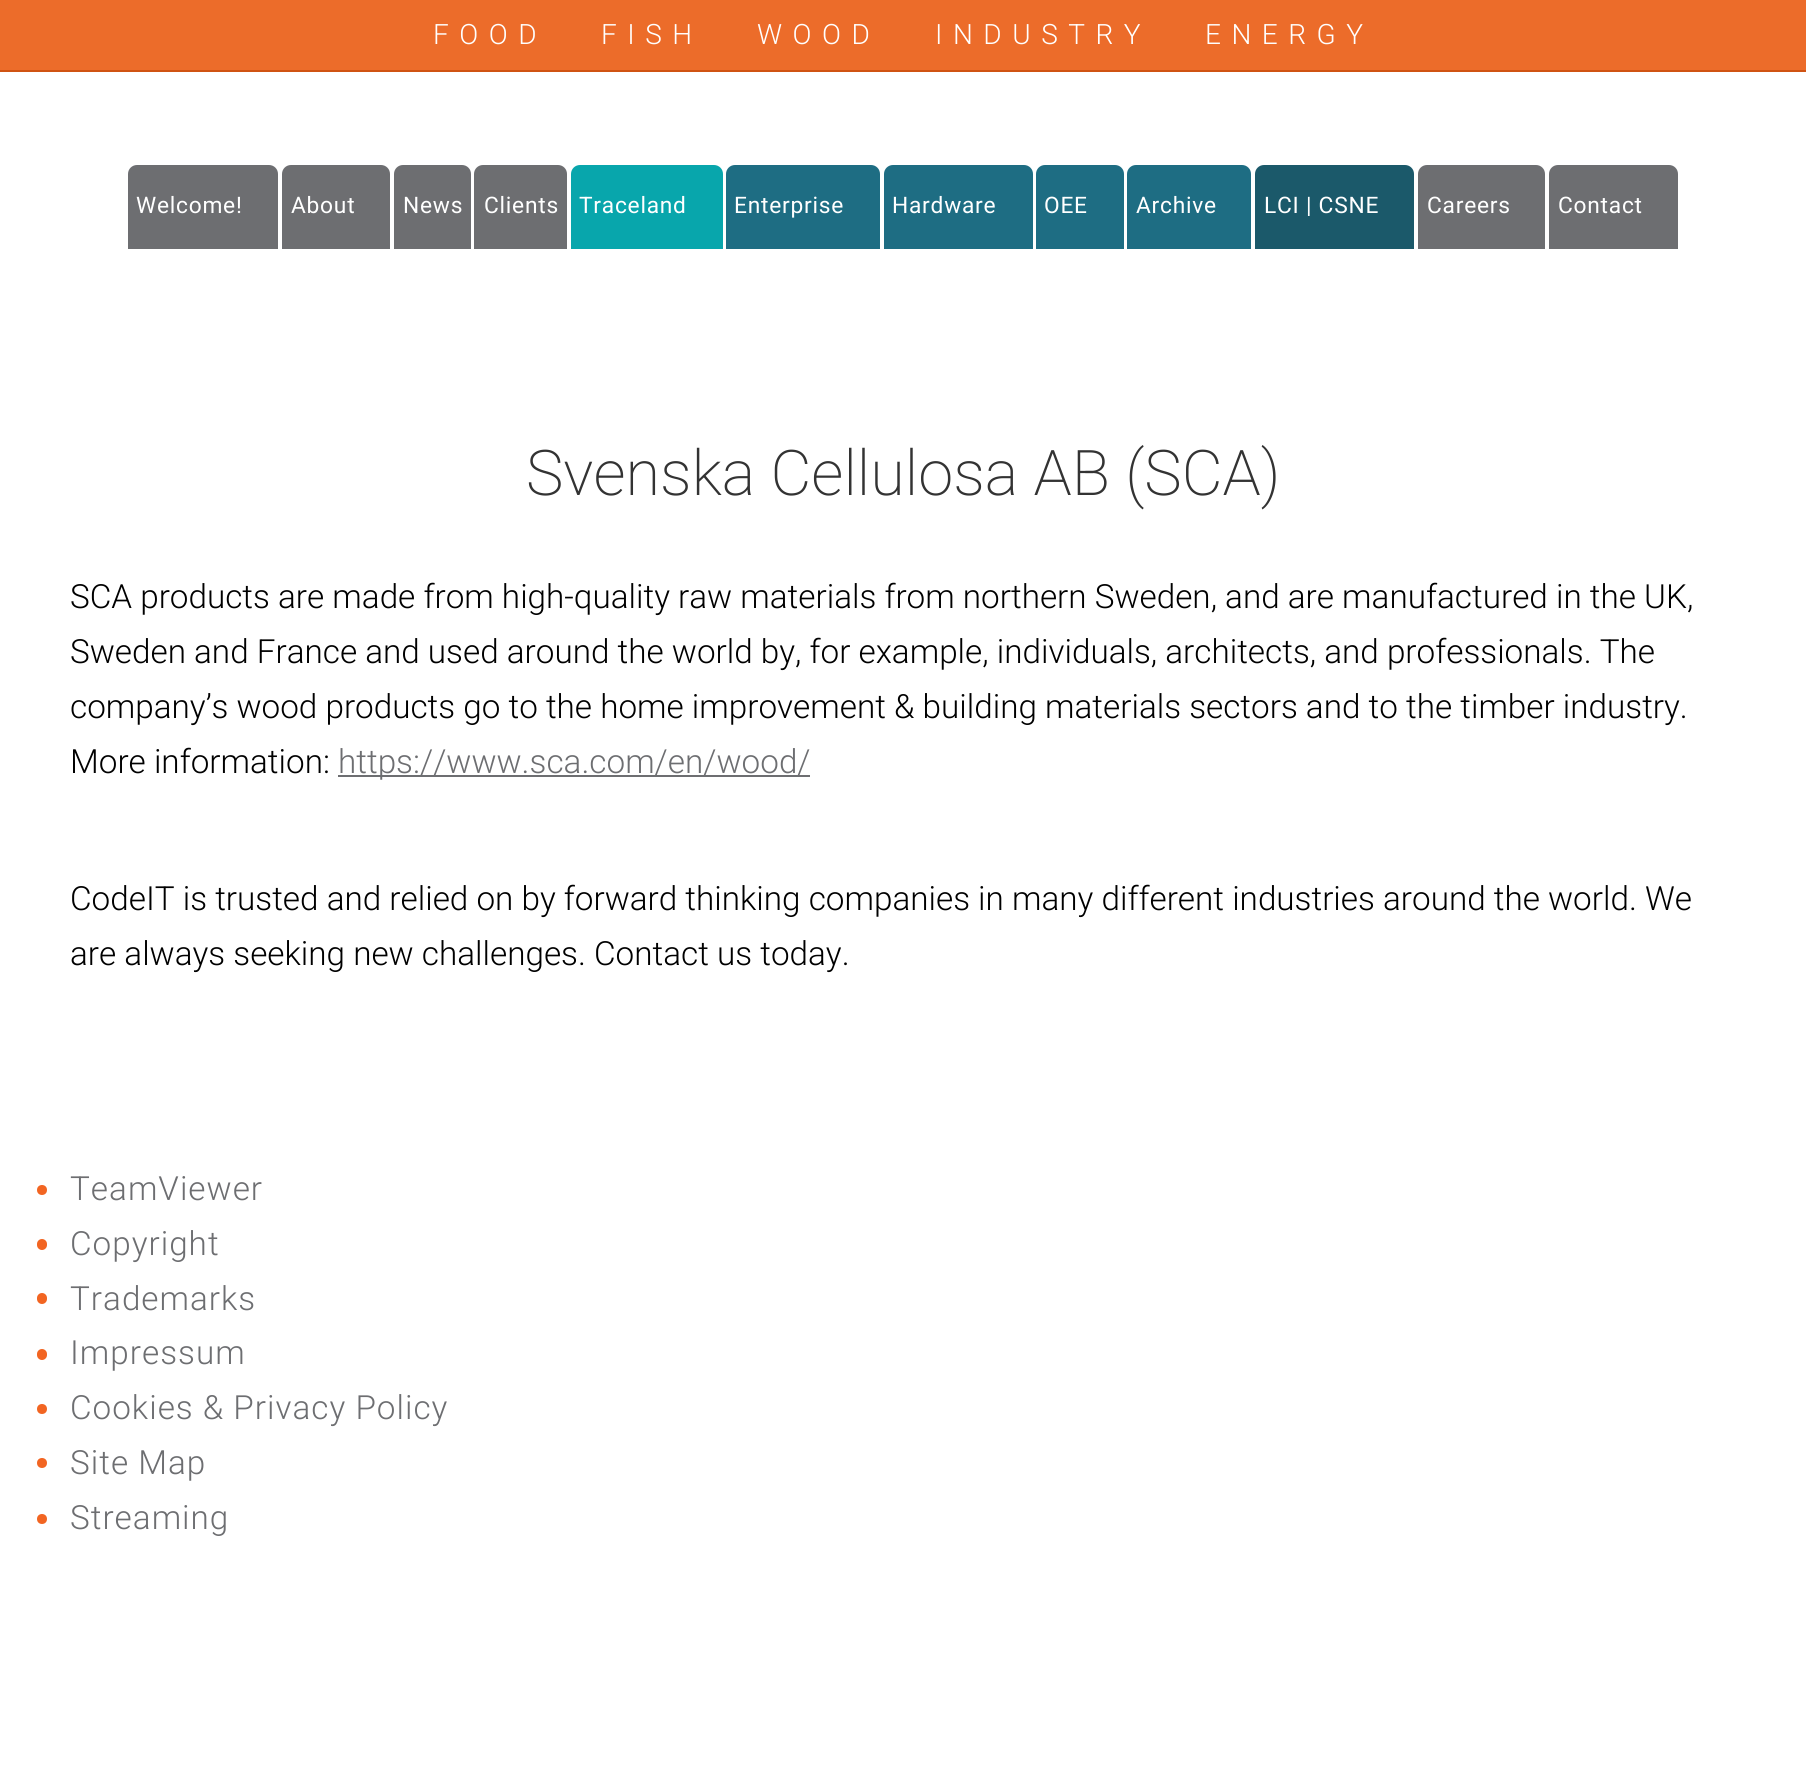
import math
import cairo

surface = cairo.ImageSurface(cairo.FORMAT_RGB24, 1806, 1777)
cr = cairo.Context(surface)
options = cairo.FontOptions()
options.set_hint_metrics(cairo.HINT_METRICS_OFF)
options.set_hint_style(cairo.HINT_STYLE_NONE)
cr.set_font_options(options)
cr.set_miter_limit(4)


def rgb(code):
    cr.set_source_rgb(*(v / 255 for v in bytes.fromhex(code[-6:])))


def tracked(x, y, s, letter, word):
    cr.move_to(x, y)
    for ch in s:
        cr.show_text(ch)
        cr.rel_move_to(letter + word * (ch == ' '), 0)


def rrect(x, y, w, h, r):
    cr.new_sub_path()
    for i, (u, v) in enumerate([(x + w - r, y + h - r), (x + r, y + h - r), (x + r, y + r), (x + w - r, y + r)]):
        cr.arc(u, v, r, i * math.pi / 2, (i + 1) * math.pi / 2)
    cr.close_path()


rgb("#ffffff")
cr.paint()
rgb("#ec6c2a")
cr.rectangle(0, 0, 1806, 70)
cr.fill()
rgb("#d05313")
cr.rectangle(0, 70, 1806, 2)
cr.fill()
rgb("#6d6e71")
cr.new_path()
cr.move_to(137, 165)
cr.line_to(269, 165)
cr.curve_to(274, 165, 278, 169, 278, 174)
cr.line_to(278, 254)
cr.line_to(128, 254)
cr.line_to(128, 174)
cr.curve_to(128, 169, 132, 165, 137, 165)
cr.close_path()
cr.fill()
rgb("#ffffff")
cr.rectangle(128, 249, 150, 5)
cr.fill()
rgb("#6d6e71")
cr.new_path()
cr.move_to(291, 165)
cr.line_to(381, 165)
cr.curve_to(386, 165, 390, 169, 390, 174)
cr.line_to(390, 254)
cr.line_to(282, 254)
cr.line_to(282, 174)
cr.curve_to(282, 169, 286, 165, 291, 165)
cr.close_path()
cr.fill()
rgb("#ffffff")
cr.rectangle(282, 249, 108, 5)
cr.fill()
rgb("#6d6e71")
cr.new_path()
cr.move_to(403, 165)
cr.line_to(462, 165)
cr.curve_to(467, 165, 471, 169, 471, 174)
cr.line_to(471, 254)
cr.line_to(394, 254)
cr.line_to(394, 174)
cr.curve_to(394, 169, 398, 165, 403, 165)
cr.close_path()
cr.fill()
rgb("#ffffff")
cr.rectangle(394, 249, 77, 5)
cr.fill()
rgb("#6d6e71")
cr.new_path()
cr.move_to(483, 165)
cr.line_to(558, 165)
cr.curve_to(563, 165, 567, 169, 567, 174)
cr.line_to(567, 254)
cr.line_to(474, 254)
cr.line_to(474, 174)
cr.curve_to(474, 169, 478, 165, 483, 165)
cr.close_path()
cr.fill()
rgb("#ffffff")
cr.rectangle(474, 249, 93, 5)
cr.fill()
rgb("#08a6ac")
cr.new_path()
cr.move_to(580, 165)
cr.line_to(714, 165)
cr.curve_to(719, 165, 723, 169, 723, 174)
cr.line_to(723, 254)
cr.line_to(571, 254)
cr.line_to(571, 174)
cr.curve_to(571, 169, 575, 165, 580, 165)
cr.close_path()
cr.fill()
rgb("#ffffff")
cr.rectangle(571, 249, 152, 5)
cr.fill()
rgb("#1e6d83")
cr.new_path()
cr.move_to(735, 165)
cr.line_to(871, 165)
cr.curve_to(876, 165, 880, 169, 880, 174)
cr.line_to(880, 254)
cr.line_to(726, 254)
cr.line_to(726, 174)
cr.curve_to(726, 169, 730, 165, 735, 165)
cr.close_path()
cr.fill()
rgb("#ffffff")
cr.rectangle(726, 249, 154, 5)
cr.fill()
rgb("#1e6d83")
cr.new_path()
cr.move_to(893, 165)
cr.line_to(1024, 165)
cr.curve_to(1029, 165, 1033, 169, 1033, 174)
cr.line_to(1033, 254)
cr.line_to(884, 254)
cr.line_to(884, 174)
cr.curve_to(884, 169, 888, 165, 893, 165)
cr.close_path()
cr.fill()
rgb("#ffffff")
cr.rectangle(884, 249, 149, 5)
cr.fill()
rgb("#1e6d83")
cr.new_path()
cr.move_to(1045, 165)
cr.line_to(1115, 165)
cr.curve_to(1120, 165, 1124, 169, 1124, 174)
cr.line_to(1124, 254)
cr.line_to(1036, 254)
cr.line_to(1036, 174)
cr.curve_to(1036, 169, 1040, 165, 1045, 165)
cr.close_path()
cr.fill()
rgb("#ffffff")
cr.rectangle(1036, 249, 88, 5)
cr.fill()
rgb("#1e6d83")
cr.new_path()
cr.move_to(1136, 165)
cr.line_to(1242, 165)
cr.curve_to(1247, 165, 1251, 169, 1251, 174)
cr.line_to(1251, 254)
cr.line_to(1127, 254)
cr.line_to(1127, 174)
cr.curve_to(1127, 169, 1131, 165, 1136, 165)
cr.close_path()
cr.fill()
rgb("#ffffff")
cr.rectangle(1127, 249, 124, 5)
cr.fill()
rgb("#1b596a")
cr.new_path()
cr.move_to(1264, 165)
cr.line_to(1405, 165)
cr.curve_to(1410, 165, 1414, 169, 1414, 174)
cr.line_to(1414, 254)
cr.line_to(1255, 254)
cr.line_to(1255, 174)
cr.curve_to(1255, 169, 1259, 165, 1264, 165)
cr.close_path()
cr.fill()
rgb("#ffffff")
cr.rectangle(1255, 249, 159, 5)
cr.fill()
rgb("#6d6e71")
cr.new_path()
cr.move_to(1427, 165)
cr.line_to(1536, 165)
cr.curve_to(1541, 165, 1545, 169, 1545, 174)
cr.line_to(1545, 254)
cr.line_to(1418, 254)
cr.line_to(1418, 174)
cr.curve_to(1418, 169, 1422, 165, 1427, 165)
cr.close_path()
cr.fill()
rgb("#ffffff")
cr.rectangle(1418, 249, 127, 5)
cr.fill()
rgb("#6d6e71")
cr.new_path()
cr.move_to(1558, 165)
cr.line_to(1669, 165)
cr.curve_to(1674, 165, 1678, 169, 1678, 174)
cr.line_to(1678, 254)
cr.line_to(1549, 254)
cr.line_to(1549, 174)
cr.curve_to(1549, 169, 1553, 165, 1558, 165)
cr.close_path()
cr.fill()
rgb("#ffffff")
cr.rectangle(1549, 249, 129, 5)
cr.fill()
rgb("#6d6e71")
cr.rectangle(338, 775, 472, 2)
cr.fill()
rgb("#f26522")
cr.arc(42, 1190, 5, 0, 2 * math.pi)
cr.fill()
rrect(37, 1239, 10, 11, 5)
cr.fill()
rrect(37, 1293, 10, 11, 5)
cr.fill()
rrect(37, 1349, 10, 11, 5)
cr.fill()
cr.arc(42, 1409, 5, 0, 2 * math.pi)
cr.fill()
cr.arc(42, 1463, 5, 0, 2 * math.pi)
cr.fill()
cr.arc(42, 1519, 5, 0, 2 * math.pi)
cr.fill()
cr.select_font_face("Roboto Light")
cr.set_font_size(28)
rgb("#ffffff")
for x, y, s in [
    (433, 44, "FOOD"),
    (601, 44, "FISH"),
    (757, 44, "WOOD"),
    (935, 44, "INDUSTRY"),
    (1205, 44, "ENERGY"),
]:
    tracked(x, y, s, 10.5, 0)
cr.select_font_face("Roboto")
cr.set_font_size(22.75)
for x, y, s in [
    (136, 213, "Welcome!"),
    (291, 213, "About"),
    (403, 213, "News"),
    (484, 213, "Clients"),
    (579, 213, "Traceland"),
    (734, 213, "Enterprise"),
    (892, 213, "Hardware"),
    (1044, 213, "OEE"),
    (1136, 213, "Archive"),
    (1264, 213, "LCI | CSNE"),
    (1427, 213, "Careers"),
    (1558, 213, "Contact"),
]:
    tracked(x, y, s, 0.75, 0)
cr.select_font_face("Roboto ExtraLight")
cr.set_font_size(63)
rgb("#333333")
cr.move_to(526, 495)
cr.show_text("Svenska Cellulosa AB (SCA)")
cr.select_font_face("Roboto Light")
cr.set_font_size(33.25)
rgb("#000000")
for x, y, s in [
    (70, 608, "SCA products are made from high-quality raw materials from northern Sweden, and are manufactured in the UK,"),
    (70, 663, "Sweden and France and used around the world by, for example, individuals, architects, and professionals. The"),
    (70, 718, "company’s wood products go to the home improvement & building materials sectors and to the timber industry."),
    (70, 773, "More information:"),
]:
    cr.move_to(x, y)
    cr.show_text(s)
rgb("#6d6e71")
cr.move_to(338, 773)
cr.show_text("https://www.sca.com/en/wood/")
rgb("#000000")
cr.move_to(70, 910)
cr.show_text("CodeIT is trusted and relied on by forward thinking companies in many different industries around the world. We")
cr.move_to(70, 965)
cr.show_text("are always seeking new challenges. Contact us today.")
rgb("#6d6e71")
for x, y, s in [
    (70, 1200, "TeamViewer"),
    (70, 1255, "Copyright"),
    (70, 1310, "Trademarks"),
    (70, 1364, "Impressum"),
    (70, 1419, "Cookies & Privacy Policy"),
    (70, 1474, "Site Map"),
    (70, 1529, "Streaming"),
]:
    tracked(x, y, s, 1, 0)
surface.write_to_png("page.png")
